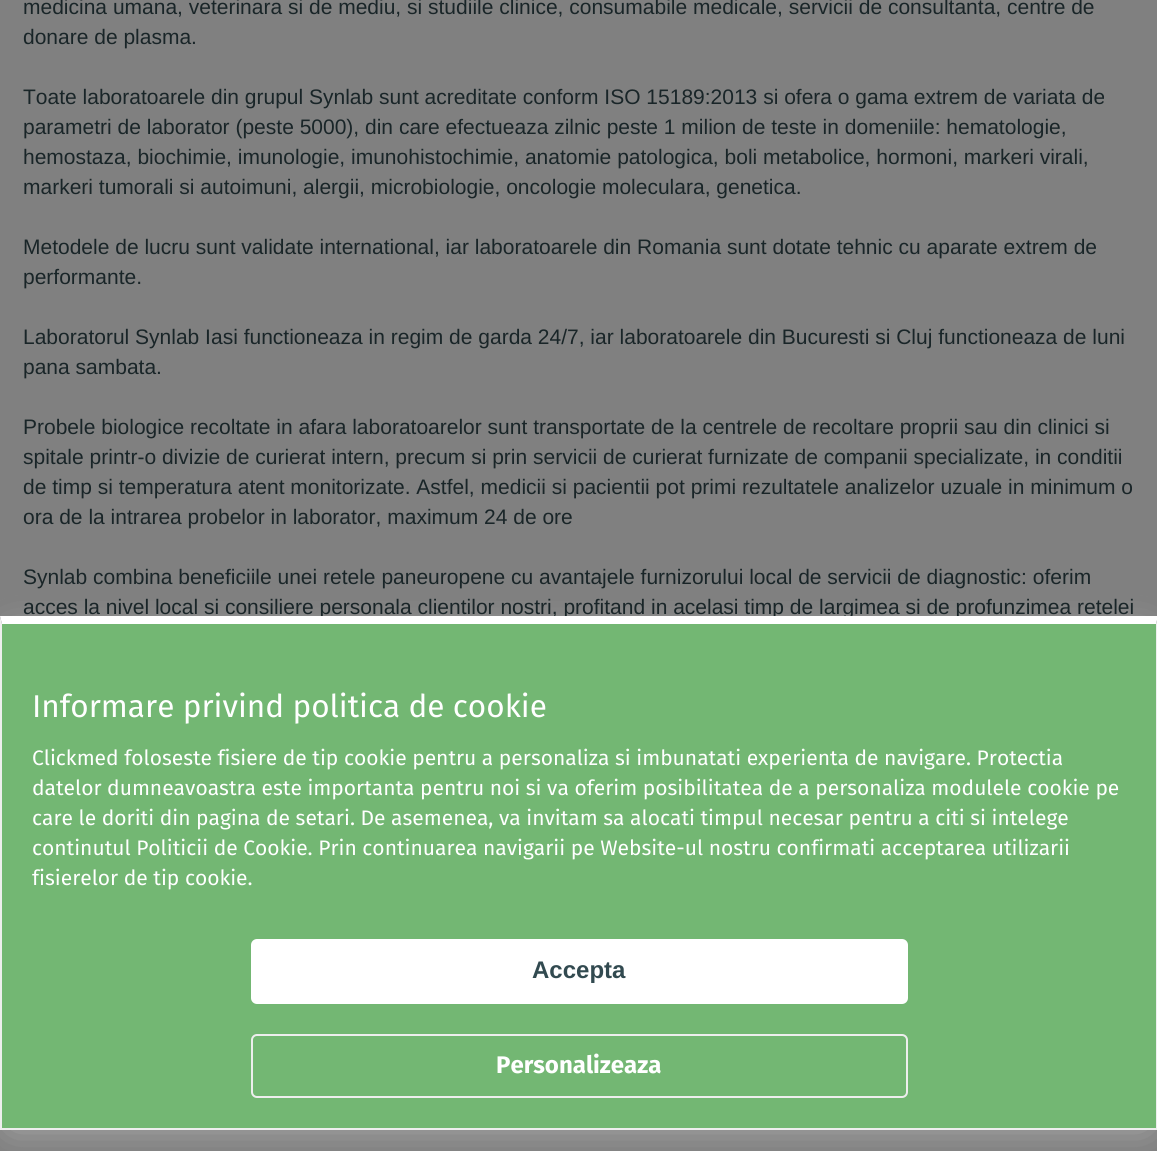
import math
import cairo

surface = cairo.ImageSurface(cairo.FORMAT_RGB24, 1157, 1151)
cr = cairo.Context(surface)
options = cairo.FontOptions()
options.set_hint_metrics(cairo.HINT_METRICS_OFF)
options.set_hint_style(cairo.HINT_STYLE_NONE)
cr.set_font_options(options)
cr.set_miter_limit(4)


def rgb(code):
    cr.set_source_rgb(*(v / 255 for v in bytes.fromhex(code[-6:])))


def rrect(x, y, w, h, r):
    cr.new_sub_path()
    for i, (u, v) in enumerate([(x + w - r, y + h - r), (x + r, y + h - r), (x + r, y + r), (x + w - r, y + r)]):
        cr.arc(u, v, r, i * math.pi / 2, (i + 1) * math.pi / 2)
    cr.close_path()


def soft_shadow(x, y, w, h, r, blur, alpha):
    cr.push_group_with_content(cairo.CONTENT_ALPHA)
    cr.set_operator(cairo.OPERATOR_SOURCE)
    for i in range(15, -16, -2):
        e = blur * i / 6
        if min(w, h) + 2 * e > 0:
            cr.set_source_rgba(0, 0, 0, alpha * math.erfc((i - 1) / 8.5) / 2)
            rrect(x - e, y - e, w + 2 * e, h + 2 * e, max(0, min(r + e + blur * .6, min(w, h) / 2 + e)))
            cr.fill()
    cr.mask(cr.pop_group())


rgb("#808080")
cr.paint()
rgb("#b2b2b2")
soft_shadow(12, 636, 1134, 489, 0, 19, 1)
rgb("#73b773")
cr.rectangle(2, 624, 1154, 504)
cr.fill()
rgb("#ffffff")
rrect(251, 939, 657, 65, 6)
cr.fill()
rrect(252, 1035, 655, 62, 5)
rgb("#eeeeee")
cr.stroke()
cr.select_font_face("Liberation Sans")
cr.set_font_size(21)
rgb("#192528")
for x, y, s in [
    (23, 14, "medicina umana, veterinara si de mediu, si studiile clinice, consumabile medicale, servicii de consultanta, centre de"),
    (23, 44, "donare de plasma."),
    (23, 104, "Toate laboratoarele din grupul Synlab sunt acreditate conform ISO 15189:2013 si ofera o gama extrem de variata de"),
    (23, 134, "parametri de laborator (peste 5000), din care efectueaza zilnic peste 1 milion de teste in domeniile: hematologie,"),
    (23, 164, "hemostaza, biochimie, imunologie, imunohistochimie, anatomie patologica, boli metabolice, hormoni, markeri virali,"),
    (23, 194, "markeri tumorali si autoimuni, alergii, microbiologie, oncologie moleculara, genetica."),
    (23, 254, "Metodele de lucru sunt validate international, iar laboratoarele din Romania sunt dotate tehnic cu aparate extrem de"),
    (23, 284, "performante."),
    (23, 344, "Laboratorul Synlab Iasi functioneaza in regim de garda 24/7, iar laboratoarele din Bucuresti si Cluj functioneaza de luni"),
    (23, 374, "pana sambata."),
    (23, 434, "Probele biologice recoltate in afara laboratoarelor sunt transportate de la centrele de recoltare proprii sau din clinici si"),
    (23, 464, "spitale printr-o divizie de curierat intern, precum si prin servicii de curierat furnizate de companii specializate, in conditii"),
    (23, 494, "de timp si temperatura atent monitorizate. Astfel, medicii si pacientii pot primi rezultatele analizelor uzuale in minimum o"),
    (23, 524, "ora de la intrarea probelor in laborator, maximum 24 de ore"),
    (23, 584, "Synlab combina beneficiile unei retele paneuropene cu avantajele furnizorului local de servicii de diagnostic: oferim"),
    (23, 614, "acces la nivel local si consiliere personala clientilor nostri, profitand in acelasi timp de largimea si de profunzimea retelei"),
]:
    cr.move_to(x, y)
    cr.show_text(s)
rgb("#ffffff")
cr.new_path()
cr.move_to(0, 616)
cr.line_to(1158, 616)
cr.line_to(1156, 624)
cr.line_to(2, 624)
cr.close_path()
cr.fill()
rgb("#eeeeee")
cr.new_path()
cr.move_to(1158, 616)
cr.line_to(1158, 1130)
cr.line_to(1156, 1128)
cr.line_to(1156, 624)
cr.close_path()
cr.fill()
cr.rectangle(0, 1128, 1157, 2)
cr.fill()
cr.new_path()
cr.move_to(0, 1130)
cr.line_to(0, 616)
cr.line_to(2, 624)
cr.line_to(2, 1128)
cr.close_path()
cr.fill()
cr.select_font_face("Fira Sans")
cr.set_font_size(31.5)
rgb("#ffffff")
cr.move_to(32, 717)
cr.show_text("Informare privind politica de cookie")
cr.set_font_size(21)
for x, y, s in [
    (32, 765, "Clickmed foloseste fisiere de tip cookie pentru a personaliza si imbunatati experienta de navigare. Protectia"),
    (32, 795, "datelor dumneavoastra este importanta pentru noi si va oferim posibilitatea de a personaliza modulele cookie pe"),
    (32, 825, "care le doriti din pagina de setari. De asemenea, va invitam sa alocati timpul necesar pentru a citi si intelege"),
    (32, 855, "continutul Politicii de Cookie. Prin continuarea navigarii pe Website-ul nostru confirmati acceptarea utilizarii"),
    (32, 885, "fisierelor de tip cookie."),
]:
    cr.move_to(x, y)
    cr.show_text(s)
cr.select_font_face("Liberation Sans", cairo.FONT_SLANT_NORMAL, cairo.FONT_WEIGHT_BOLD)
cr.set_font_size(24)
rgb("#324a50")
cr.move_to(532, 978)
cr.show_text("Accepta")
cr.select_font_face("Fira Sans", cairo.FONT_SLANT_NORMAL, cairo.FONT_WEIGHT_BOLD)
rgb("#ffffff")
cr.move_to(496, 1073)
cr.show_text("Personalizeaza")
surface.write_to_png("page.png")
